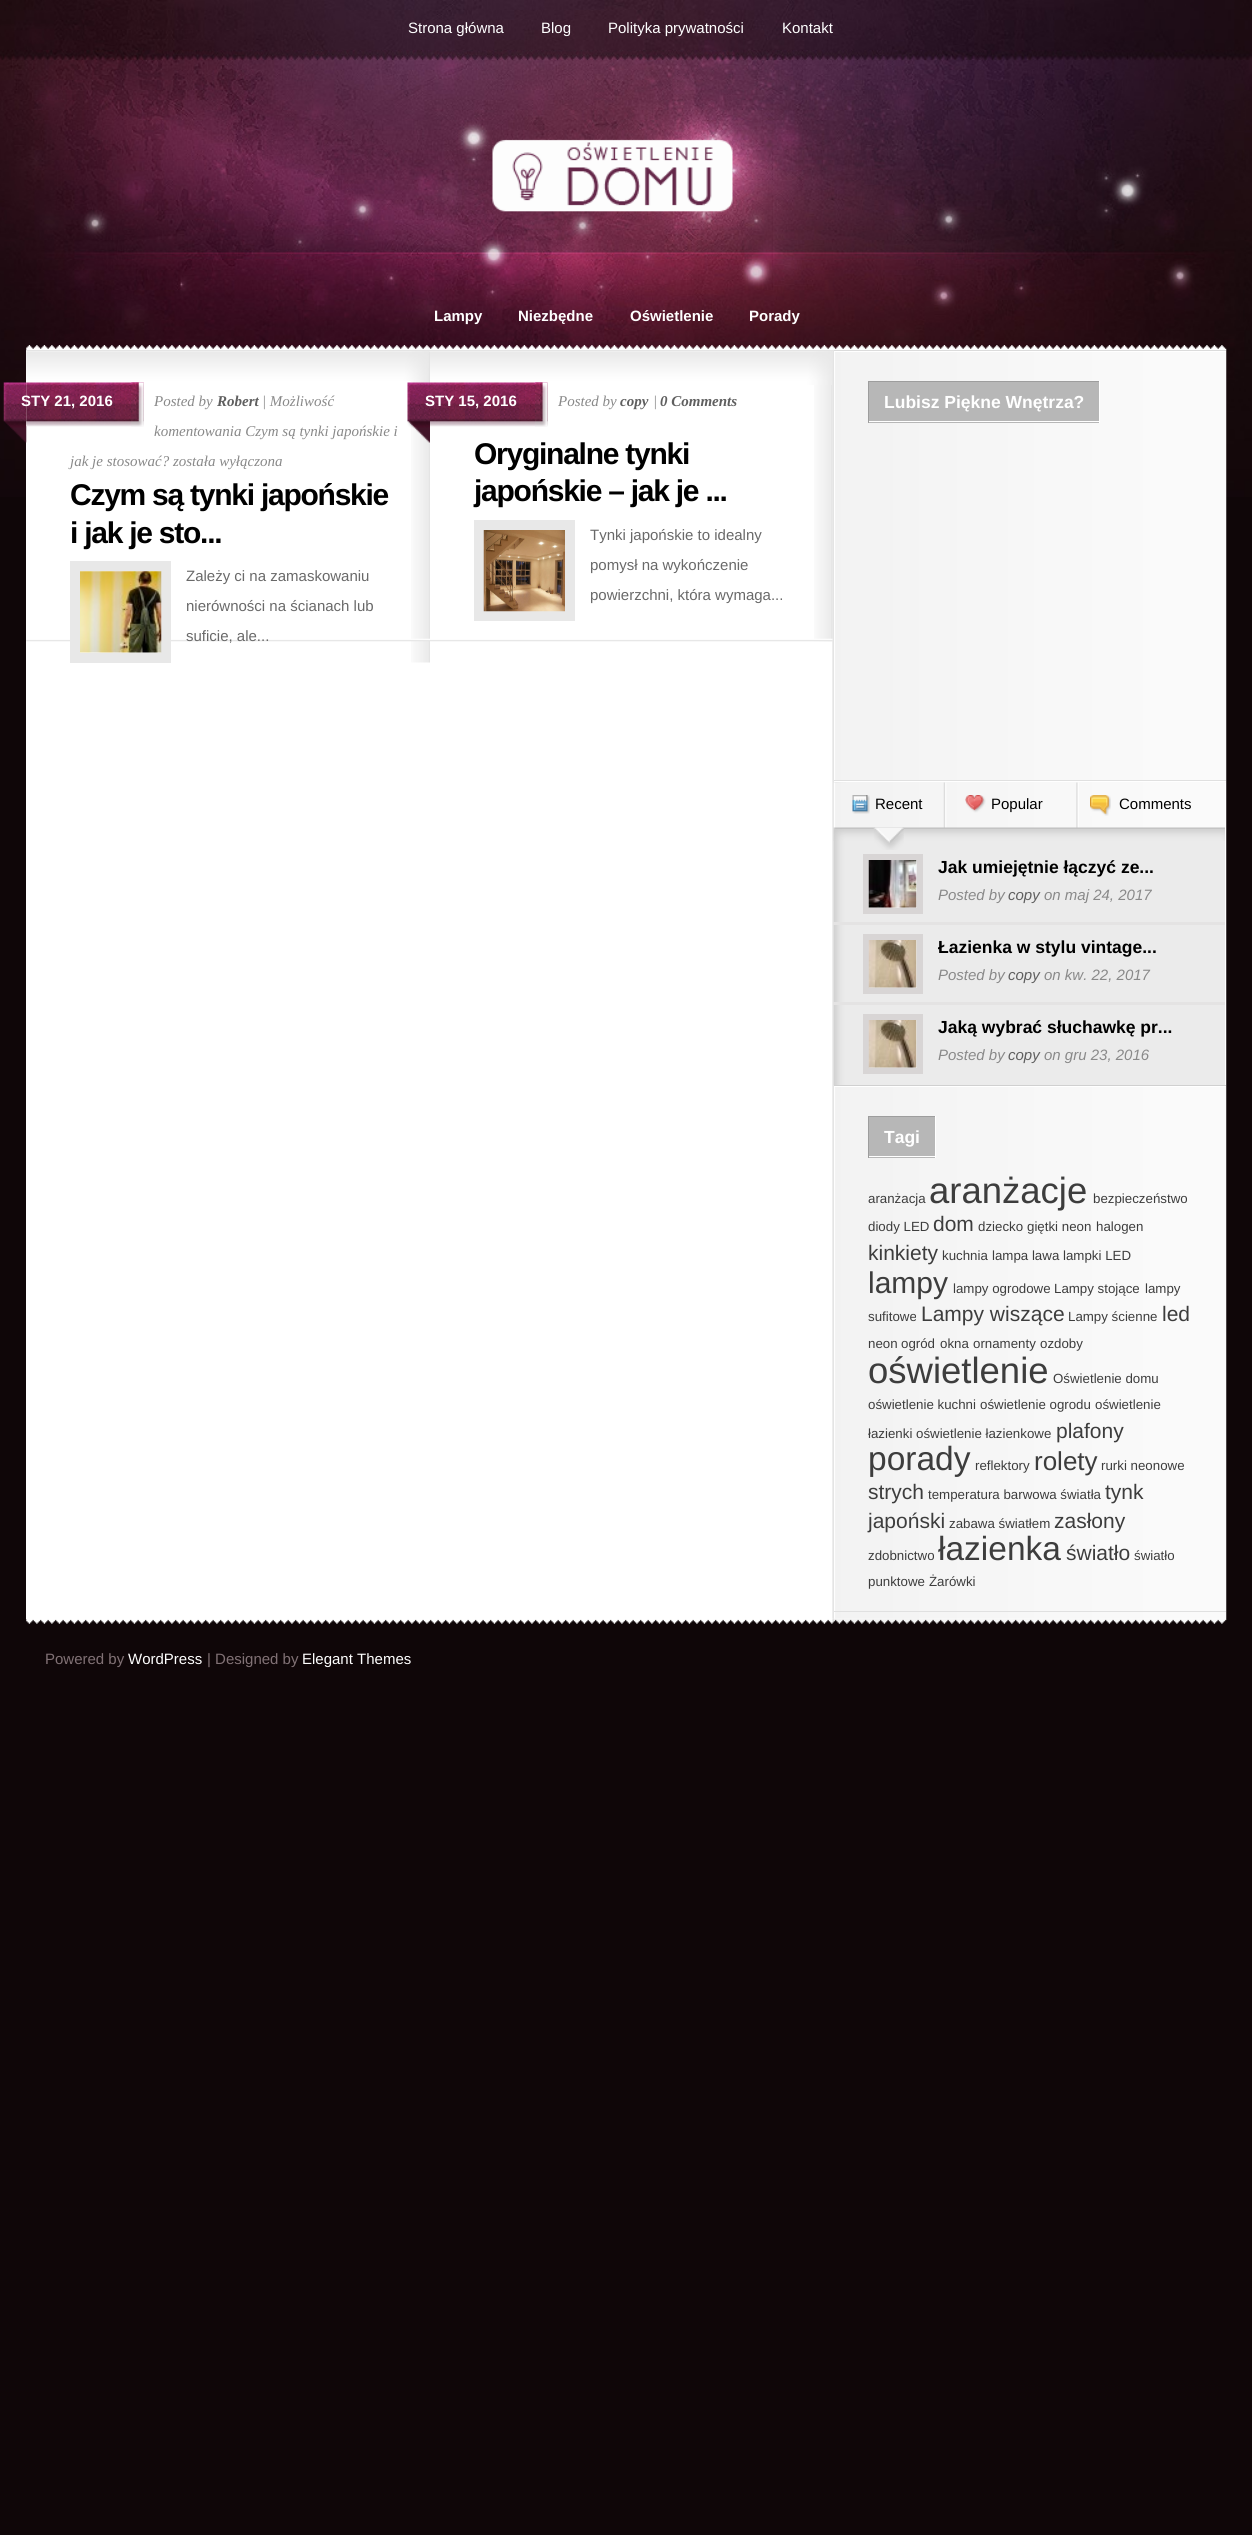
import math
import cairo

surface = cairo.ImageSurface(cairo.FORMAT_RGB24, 1252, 2535)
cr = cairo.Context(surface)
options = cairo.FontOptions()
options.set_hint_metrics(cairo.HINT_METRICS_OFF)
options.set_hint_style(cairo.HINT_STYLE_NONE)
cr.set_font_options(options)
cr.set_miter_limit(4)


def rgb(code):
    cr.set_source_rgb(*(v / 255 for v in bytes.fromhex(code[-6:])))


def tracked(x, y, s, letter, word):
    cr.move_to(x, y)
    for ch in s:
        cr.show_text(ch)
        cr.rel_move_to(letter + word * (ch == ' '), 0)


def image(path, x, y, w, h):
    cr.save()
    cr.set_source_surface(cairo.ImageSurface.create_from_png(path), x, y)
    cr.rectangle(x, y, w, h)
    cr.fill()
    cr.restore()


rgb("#0f0608")
cr.paint()
image("img/1.png", 0, 0, 1252, 497)
image("img/2.png", 492, 139, 241, 73)
image("img/3.png", 26, 345, 1201, 5)
rgb("#ffffff")
cr.rectangle(26, 351, 1200, 1268)
cr.fill()
image("img/4.png", 832, 350, 395, 1269)
rgb("#e4e4e4")
cr.rectangle(26, 350, 807, 1)
cr.fill()
image("img/5.png", 411, 351, 19, 312)
image("img/6.png", 26, 638, 404, 4)
image("img/7.png", 26, 351, 403, 30)
image("img/8.png", 3, 382, 24, 61)
image("img/9.png", 26, 382, 118, 45)
image("img/10.png", 131, 382, 13, 45)
cr.rectangle(75, 566, 91, 92)
rgb("#e8e8e8")
cr.set_line_width(10)
cr.stroke()
image("img/11.png", 80, 571, 82, 82)
image("img/12.png", 814, 351, 19, 291)
image("img/13.png", 430, 638, 403, 4)
image("img/14.png", 430, 351, 402, 34)
image("img/15.png", 407, 382, 23, 61)
image("img/16.png", 430, 382, 118, 45)
image("img/17.png", 535, 382, 13, 45)
cr.rectangle(479, 525, 91, 91)
cr.stroke()
image("img/18.png", 483, 530, 82, 82)
for x, y, w, h, color in [
    (834, 350, 392, 1, "#dbdbdb"),
    (834, 351, 392, 1, "#ffffff"),
    (834, 780, 392, 1, "#e0e0e0"),
    (869, 382, 230, 41, "#b7b7b7"),
    (868, 381, 232, 1, "#9d9d9d"),
    (1099, 381, 1, 42, "#ffffff"),
    (868, 421, 232, 1, "#ffffff"),
    (868, 381, 1, 42, "#9d9d9d"),
    (834, 781, 392, 1, "#ffffff"),
    (834, 1085, 392, 1, "#d0d0d0"),
]:
    rgb(color)
    cr.rectangle(x, y, w, h)
    cr.fill()
image("img/24.png", 833, 782, 13, 303)
image("img/19.png", 833, 782, 392, 59)
image("img/20.png", 852, 795, 18, 19)
rgb("#ebebeb")
cr.rectangle(846, 841, 379, 244)
cr.fill()
image("img/21.png", 873, 827, 31, 23)
image("img/22.png", 965, 795, 21, 18)
image("img/23.png", 1090, 795, 21, 21)
rgb("#ffffff")
cr.rectangle(1225, 783, 1, 302)
cr.fill()
rgb("#e4e3e3")
cr.rectangle(833, 922, 392, 3)
cr.fill()
cr.rectangle(866, 857, 54, 54)
rgb("#d8d5d5")
cr.set_line_width(6)
cr.stroke()
image("img/25.png", 868, 860, 49, 48)
rgb("#e4e3e3")
cr.rectangle(833, 1002, 392, 3)
cr.fill()
cr.rectangle(866, 937, 54, 54)
rgb("#d8d5d5")
cr.stroke()
image("img/26.png", 868, 940, 49, 48)
cr.rectangle(866, 1017, 54, 54)
cr.stroke()
image("img/26.png", 868, 1020, 49, 48)
for x, y, w, h, color in [
    (834, 1086, 392, 1, "#ffffff"),
    (834, 1611, 392, 1, "#e0e0e0"),
    (869, 1117, 66, 41, "#b7b7b7"),
    (868, 1116, 68, 1, "#9d9d9d"),
    (935, 1116, 1, 42, "#ffffff"),
    (868, 1156, 68, 1, "#ffffff"),
    (868, 1116, 1, 42, "#9d9d9d"),
]:
    rgb(color)
    cr.rectangle(x, y, w, h)
    cr.fill()
image("img/27.png", 26, 1618, 1201, 6)
cr.select_font_face("Liberation Sans")
cr.set_font_size(15)
rgb("#ffffff")
for x, y, s in [
    (408, 33, "Strona główna"),
    (541, 33, "Blog"),
    (608, 33, "Polityka prywatności"),
    (782, 33, "Kontakt"),
]:
    cr.move_to(x, y)
    cr.show_text(s)
cr.select_font_face("Liberation Sans", cairo.FONT_SLANT_NORMAL, cairo.FONT_WEIGHT_BOLD)
for x, y, s in [
    (434, 321, "Lampy"),
    (518, 321, "Niezbędne"),
    (630, 321, "Oświetlenie"),
    (749, 321, "Porady"),
    (21, 406, "STY 21, 2016"),
]:
    cr.move_to(x, y)
    cr.show_text(s)
cr.select_font_face("Liberation Serif", cairo.FONT_SLANT_ITALIC)
rgb("#898989")
cr.move_to(154, 406)
cr.show_text("Posted by")
cr.select_font_face("Liberation Serif", cairo.FONT_SLANT_ITALIC, cairo.FONT_WEIGHT_BOLD)
rgb("#5f5f5f")
cr.move_to(217, 406)
cr.show_text("Robert")
cr.select_font_face("Liberation Serif", cairo.FONT_SLANT_ITALIC)
rgb("#898989")
for x, y, s in [
    (262, 406, "| Możliwość"),
    (154, 436, "komentowania Czym są tynki japońskie i"),
    (70, 466, "jak je stosować? została wyłączona"),
]:
    cr.move_to(x, y)
    cr.show_text(s)
cr.select_font_face("Liberation Sans", cairo.FONT_SLANT_NORMAL, cairo.FONT_WEIGHT_BOLD)
cr.set_font_size(30)
rgb("#000000")
tracked(70, 505, "Czym są tynki japońskie", -1.25, 0)
tracked(70, 543, "i jak je sto...", -1.25, 0)
cr.select_font_face("Liberation Sans")
cr.set_font_size(15)
rgb("#696969")
for x, y, s in [
    (186, 581, "Zależy ci na zamaskowaniu"),
    (186, 611, "nierówności na ścianach lub"),
    (186, 641, "suficie, ale..."),
]:
    cr.move_to(x, y)
    cr.show_text(s)
cr.select_font_face("Liberation Sans", cairo.FONT_SLANT_NORMAL, cairo.FONT_WEIGHT_BOLD)
rgb("#ffffff")
cr.move_to(425, 406)
cr.show_text("STY 15, 2016")
cr.select_font_face("Liberation Serif", cairo.FONT_SLANT_ITALIC)
rgb("#898989")
cr.move_to(558, 406)
cr.show_text("Posted by")
cr.select_font_face("Liberation Serif", cairo.FONT_SLANT_ITALIC, cairo.FONT_WEIGHT_BOLD)
rgb("#5f5f5f")
cr.move_to(620, 406)
cr.show_text("copy")
cr.select_font_face("Liberation Serif", cairo.FONT_SLANT_ITALIC)
rgb("#898989")
cr.move_to(653, 406)
cr.show_text("|")
cr.select_font_face("Liberation Serif", cairo.FONT_SLANT_ITALIC, cairo.FONT_WEIGHT_BOLD)
rgb("#5f5f5f")
cr.move_to(660, 406)
cr.show_text("0 Comments")
cr.select_font_face("Liberation Sans", cairo.FONT_SLANT_NORMAL, cairo.FONT_WEIGHT_BOLD)
cr.set_font_size(30)
rgb("#000000")
tracked(474, 464, "Oryginalne tynki", -1.25, 0)
tracked(474, 501, "japońskie – jak je ...", -1.25, 0)
cr.select_font_face("Liberation Sans")
cr.set_font_size(15)
rgb("#696969")
for x, y, s in [
    (590, 540, "Tynki japońskie to idealny"),
    (590, 570, "pomysł na wykończenie"),
    (590, 600, "powierzchni, która wymaga..."),
]:
    cr.move_to(x, y)
    cr.show_text(s)
cr.select_font_face("Liberation Sans", cairo.FONT_SLANT_NORMAL, cairo.FONT_WEIGHT_BOLD)
cr.set_font_size(17.5)
rgb("#ffffff")
cr.move_to(884, 408)
cr.show_text("Lubisz Piękne Wnętrza?")
cr.select_font_face("Liberation Sans")
cr.set_font_size(15)
rgb("#000000")
for x, y, s in [
    (875, 809, "Recent"),
    (991, 809, "Popular"),
    (1119, 809, "Comments"),
]:
    cr.move_to(x, y)
    cr.show_text(s)
cr.select_font_face("Liberation Sans", cairo.FONT_SLANT_NORMAL, cairo.FONT_WEIGHT_BOLD)
cr.set_font_size(17.5)
cr.move_to(938, 873)
cr.show_text("Jak umiejętnie łączyć ze...")
cr.select_font_face("Liberation Sans", cairo.FONT_SLANT_ITALIC)
cr.set_font_size(15)
rgb("#898989")
cr.move_to(938, 900)
cr.show_text("Posted by")
rgb("#5f5f5f")
cr.move_to(1008, 900)
cr.show_text("copy")
rgb("#898989")
cr.move_to(1044, 900)
cr.show_text("on maj 24, 2017")
cr.select_font_face("Liberation Sans", cairo.FONT_SLANT_NORMAL, cairo.FONT_WEIGHT_BOLD)
cr.set_font_size(17.5)
rgb("#000000")
cr.move_to(938, 953)
cr.show_text("Łazienka w stylu vintage...")
cr.select_font_face("Liberation Sans", cairo.FONT_SLANT_ITALIC)
cr.set_font_size(15)
rgb("#898989")
cr.move_to(938, 980)
cr.show_text("Posted by")
rgb("#5f5f5f")
cr.move_to(1008, 980)
cr.show_text("copy")
rgb("#898989")
cr.move_to(1044, 980)
cr.show_text("on kw. 22, 2017")
cr.select_font_face("Liberation Sans", cairo.FONT_SLANT_NORMAL, cairo.FONT_WEIGHT_BOLD)
cr.set_font_size(17.5)
rgb("#000000")
cr.move_to(938, 1033)
cr.show_text("Jaką wybrać słuchawkę pr...")
cr.select_font_face("Liberation Sans", cairo.FONT_SLANT_ITALIC)
cr.set_font_size(15)
rgb("#898989")
cr.move_to(938, 1060)
cr.show_text("Posted by")
rgb("#5f5f5f")
cr.move_to(1008, 1060)
cr.show_text("copy")
rgb("#898989")
cr.move_to(1044, 1060)
cr.show_text("on gru 23, 2016")
cr.select_font_face("Liberation Sans", cairo.FONT_SLANT_NORMAL, cairo.FONT_WEIGHT_BOLD)
cr.set_font_size(17.5)
rgb("#ffffff")
cr.move_to(884, 1143)
cr.show_text("Tagi")
cr.select_font_face("Liberation Sans")
cr.set_font_size(13.3)
rgb("#3d3d3d")
cr.move_to(868, 1203)
cr.show_text("aranżacja")
cr.set_font_size(36.5)
cr.move_to(929, 1203)
cr.show_text("aranżacje")
cr.set_font_size(13.3)
cr.move_to(1093, 1203)
cr.show_text("bezpieczeństwo")
cr.move_to(868, 1231)
cr.show_text("diody LED")
cr.set_font_size(21)
cr.move_to(933, 1231)
cr.show_text("dom")
cr.set_font_size(13.3)
for x, y, s in [
    (978, 1231, "dziecko"),
    (1027, 1231, "giętki neon"),
    (1096, 1231, "halogen"),
]:
    cr.move_to(x, y)
    cr.show_text(s)
cr.set_font_size(21)
cr.move_to(868, 1260)
cr.show_text("kinkiety")
cr.set_font_size(13.3)
for x, y, s in [
    (942, 1260, "kuchnia"),
    (992, 1260, "lampa lawa"),
    (1063, 1260, "lampki LED"),
]:
    cr.move_to(x, y)
    cr.show_text(s)
cr.set_font_size(30)
cr.move_to(868, 1293)
cr.show_text("lampy")
cr.set_font_size(13.3)
for x, y, s in [
    (953, 1293, "lampy ogrodowe"),
    (1054, 1293, "Lampy stojące"),
    (1145, 1293, "lampy"),
    (868, 1321, "sufitowe"),
]:
    cr.move_to(x, y)
    cr.show_text(s)
cr.set_font_size(21)
cr.move_to(921, 1321)
cr.show_text("Lampy wiszące")
cr.set_font_size(13.3)
cr.move_to(1068, 1321)
cr.show_text("Lampy ścienne")
cr.set_font_size(21)
cr.move_to(1162, 1321)
cr.show_text("led")
cr.set_font_size(13.3)
for x, y, s in [
    (868, 1348, "neon"),
    (901, 1348, "ogród"),
    (940, 1348, "okna"),
    (973, 1348, "ornamenty"),
    (1040, 1348, "ozdoby"),
]:
    cr.move_to(x, y)
    cr.show_text(s)
cr.set_font_size(36.5)
cr.move_to(868, 1383)
cr.show_text("oświetlenie")
cr.set_font_size(13.3)
for x, y, s in [
    (1053, 1383, "Oświetlenie domu"),
    (868, 1409, "oświetlenie kuchni"),
    (980, 1409, "oświetlenie ogrodu"),
    (1095, 1409, "oświetlenie"),
    (868, 1438, "łazienki"),
    (916, 1438, "oświetlenie łazienkowe"),
]:
    cr.move_to(x, y)
    cr.show_text(s)
cr.set_font_size(21)
cr.move_to(1056, 1438)
cr.show_text("plafony")
cr.set_font_size(33.5)
cr.move_to(868, 1470)
cr.show_text("porady")
cr.set_font_size(13.3)
cr.move_to(975, 1470)
cr.show_text("reflektory")
cr.set_font_size(26)
cr.move_to(1034, 1470)
cr.show_text("rolety")
cr.set_font_size(13.3)
cr.move_to(1101, 1470)
cr.show_text("rurki neonowe")
cr.set_font_size(21)
cr.move_to(868, 1499)
cr.show_text("strych")
cr.set_font_size(13.3)
cr.move_to(928, 1499)
cr.show_text("temperatura barwowa światła")
cr.set_font_size(21)
cr.move_to(1105, 1499)
cr.show_text("tynk")
cr.move_to(868, 1528)
cr.show_text("japoński")
cr.set_font_size(13.3)
cr.move_to(949, 1528)
cr.show_text("zabawa światłem")
cr.set_font_size(21)
cr.move_to(1054, 1528)
cr.show_text("zasłony")
cr.set_font_size(13.3)
cr.move_to(868, 1560)
cr.show_text("zdobnictwo")
cr.set_font_size(33.5)
cr.move_to(938, 1560)
cr.show_text("łazienka")
cr.set_font_size(21)
cr.move_to(1066, 1560)
cr.show_text("światło")
cr.set_font_size(13.3)
for x, y, s in [
    (1134, 1560, "światło"),
    (868, 1586, "punktowe"),
    (929, 1586, "Żarówki"),
]:
    cr.move_to(x, y)
    cr.show_text(s)
cr.set_font_size(15)
rgb("#817175")
cr.move_to(45, 1664)
cr.show_text("Powered by")
rgb("#ffffff")
cr.move_to(128, 1664)
cr.show_text("WordPress")
rgb("#817175")
cr.move_to(207, 1664)
cr.show_text("| Designed by")
rgb("#ffffff")
cr.move_to(302, 1664)
cr.show_text("Elegant Themes")
surface.write_to_png("page.png")
